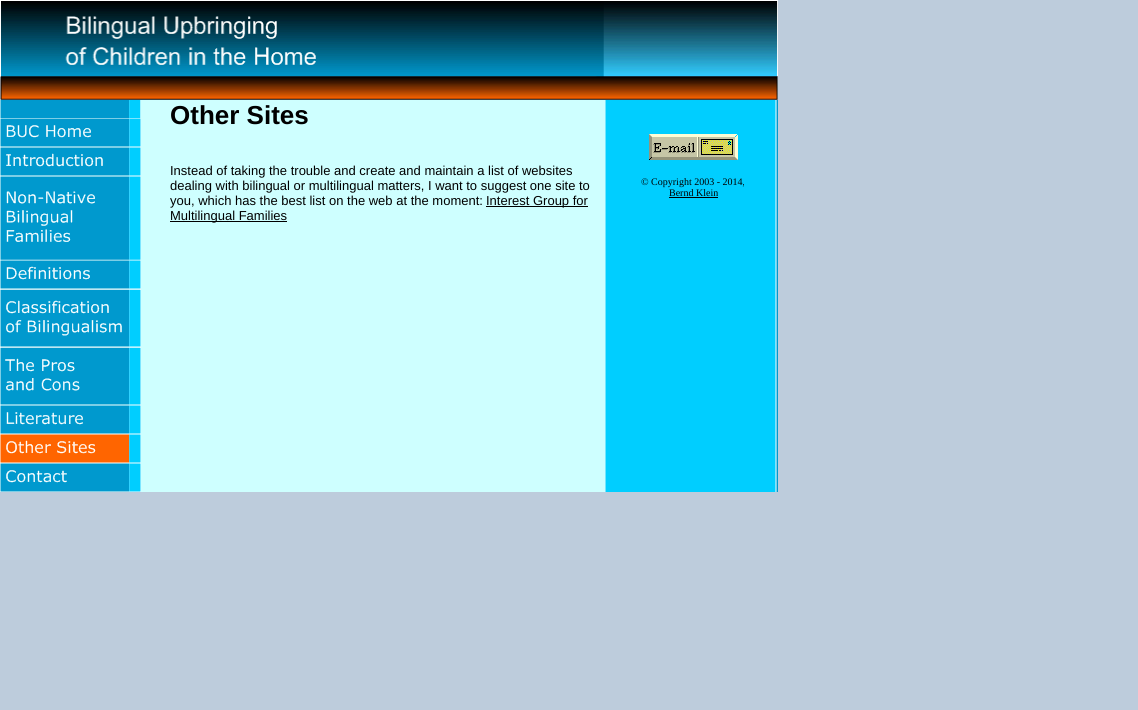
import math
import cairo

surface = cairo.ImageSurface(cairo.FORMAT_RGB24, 1138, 710)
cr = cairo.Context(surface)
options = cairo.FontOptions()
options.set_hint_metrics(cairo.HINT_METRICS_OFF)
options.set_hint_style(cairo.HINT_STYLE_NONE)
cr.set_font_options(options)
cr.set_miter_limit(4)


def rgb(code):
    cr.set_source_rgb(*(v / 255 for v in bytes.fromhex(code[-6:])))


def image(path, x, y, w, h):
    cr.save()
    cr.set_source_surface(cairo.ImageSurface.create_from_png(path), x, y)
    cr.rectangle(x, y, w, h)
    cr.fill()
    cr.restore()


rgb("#bdccdc")
cr.paint()
image("img/1.png", 0, 100, 778, 392)
image("img/2.png", 0, 0, 778, 100)
image("img/3.png", 0, 118, 141, 29)
image("img/4.png", 0, 147, 141, 29)
image("img/5.png", 0, 176, 141, 84)
image("img/6.png", 0, 260, 141, 29)
image("img/7.png", 0, 289, 141, 58)
image("img/8.png", 0, 347, 141, 58)
image("img/9.png", 0, 405, 141, 29)
image("img/10.png", 0, 434, 141, 29)
image("img/11.png", 0, 463, 141, 29)
rgb("#000000")
cr.rectangle(486, 206, 102, 1)
cr.fill()
cr.rectangle(170, 221, 117, 1)
cr.fill()
image("img/12.png", 649, 134, 89, 26)
cr.rectangle(669, 197, 49, 1)
cr.fill()
cr.select_font_face("Liberation Sans", cairo.FONT_SLANT_NORMAL, cairo.FONT_WEIGHT_BOLD)
cr.set_font_size(26)
cr.move_to(170, 124)
cr.show_text("Other Sites")
cr.select_font_face("Liberation Sans")
cr.set_font_size(13)
for x, y, s in [
    (170, 175, "Instead of taking the trouble and create and maintain a list of websites"),
    (170, 190, "dealing with bilingual or multilingual matters, I want to suggest one site to"),
    (170, 205, "you, which has the best list on the web at the moment:"),
    (486, 205, "Interest Group for"),
    (170, 220, "Multilingual Families"),
]:
    cr.move_to(x, y)
    cr.show_text(s)
cr.select_font_face("Liberation Serif")
cr.set_font_size(10)
cr.move_to(641, 185)
cr.show_text("© Copyright 2003 - 2014,")
cr.move_to(669, 196)
cr.show_text("Bernd Klein")
surface.write_to_png("page.png")
